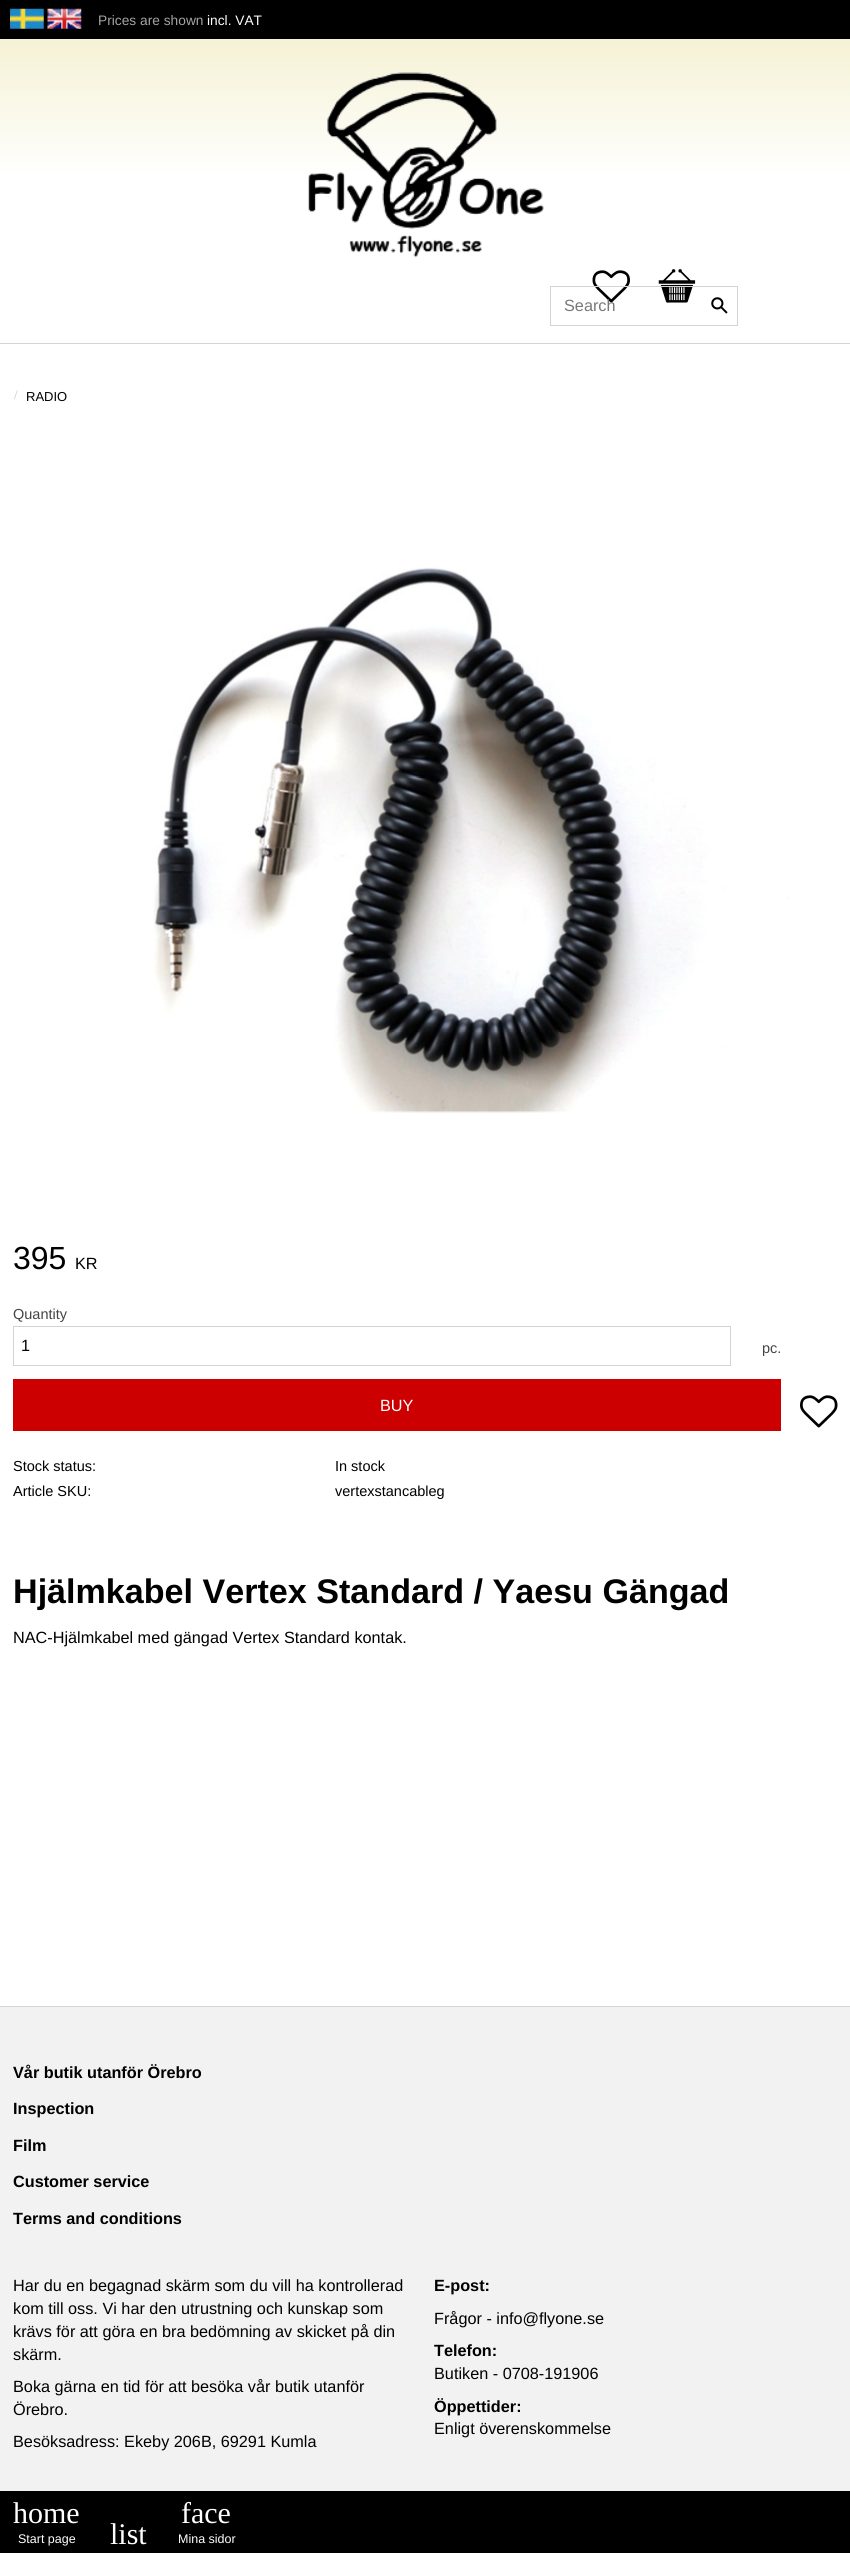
import math
import cairo

surface = cairo.ImageSurface(cairo.FORMAT_RGB24, 850, 2553)
cr = cairo.Context(surface)
options = cairo.FontOptions()
options.set_hint_metrics(cairo.HINT_METRICS_OFF)
options.set_hint_style(cairo.HINT_STYLE_NONE)
cr.set_font_options(options)
cr.set_miter_limit(4)


def rgb(code):
    cr.set_source_rgb(*(v / 255 for v in bytes.fromhex(code[-6:])))


def image(path, x, y, w, h):
    cr.save()
    cr.set_source_surface(cairo.ImageSurface.create_from_png(path), x, y)
    cr.rectangle(x, y, w, h)
    cr.fill()
    cr.restore()


rgb("#ffffff")
cr.paint()
gradient = cairo.LinearGradient(425, 0, 425, 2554)
gradient.add_color_stop_rgba(0, 0.949, 0.933, 0.788, 1)
gradient.add_color_stop_rgba(0.07, 1, 1, 1, 1)
gradient.add_color_stop_rgba(1, 1, 1, 1, 1)
cr.set_source(gradient)
cr.rectangle(0, 39, 850, 132)
cr.fill()
rgb("#d4d4d4")
cr.rectangle(0, 343, 850, 1)
cr.fill()
rgb("#000000")
cr.rectangle(0, 0, 850, 39)
cr.fill()
image("img/1.png", 10, 8, 34, 21)
image("img/2.png", 47, 8, 35, 21)
image("img/3.png", 308, 72, 236, 186)
image("img/4.png", 592, 270, 38, 33)
image("img/5.png", 658, 269, 38, 34)
cr.rectangle(550.5, 286.5, 187, 39)
rgb("#d4d4d4")
cr.set_line_width(1)
cr.stroke()
image("img/6.png", 711, 297, 17, 17)
image("img/7.png", 153, 567, 637, 546)
cr.rectangle(13.5, 1326.5, 717, 39)
cr.stroke()
rgb("#cc0000")
cr.rectangle(13, 1379, 768, 52)
cr.fill()
image("img/8.png", 800, 1395, 38, 33)
for x, y, w, h, color in [
    (0, 2007, 850, 484, "#f2f2f2"),
    (0, 2006, 850, 1, "#d4d4d4"),
    (0, 2491, 850, 62, "#000000"),
]:
    rgb(color)
    cr.rectangle(x, y, w, h)
    cr.fill()
cr.select_font_face("Liberation Sans")
cr.set_font_size(13.75)
rgb("#a4a4a4")
cr.move_to(98, 25)
cr.show_text("Prices are shown")
rgb("#ffffff")
cr.move_to(207, 25)
cr.show_text("incl. VAT")
cr.set_font_size(16.25)
rgb("#787878")
cr.move_to(564, 311)
cr.show_text("Search")
cr.select_font_face("Liberation Serif")
cr.set_font_size(13)
rgb("#c3c3c3")
cr.move_to(14, 399)
cr.show_text("/")
cr.select_font_face("Liberation Sans")
rgb("#000000")
cr.move_to(26, 401)
cr.show_text("RADIO")
cr.set_font_size(32)
cr.move_to(13, 1269)
cr.show_text("395")
cr.set_font_size(16.25)
cr.move_to(75, 1269)
cr.show_text("KR")
cr.set_font_size(14.5)
rgb("#444444")
cr.move_to(13, 1319)
cr.show_text("Quantity")
cr.set_font_size(16.25)
rgb("#000000")
cr.move_to(21, 1351)
cr.show_text("1")
cr.set_font_size(14.5)
rgb("#444444")
cr.move_to(762, 1353)
cr.show_text("pc.")
cr.set_font_size(16.25)
rgb("#ffffff")
cr.move_to(380, 1411)
cr.show_text("BUY")
cr.set_font_size(14.5)
rgb("#000000")
for x, y, s in [
    (13, 1471, "Stock status:"),
    (335, 1471, "In stock"),
    (13, 1496, "Article SKU:"),
    (335, 1496, "vertexstancableg"),
]:
    cr.move_to(x, y)
    cr.show_text(s)
cr.select_font_face("Liberation Sans", cairo.FONT_SLANT_NORMAL, cairo.FONT_WEIGHT_BOLD)
cr.set_font_size(34.1)
cr.move_to(13, 1603)
cr.show_text("Hjälmkabel Vertex Standard / Yaesu Gängad")
cr.select_font_face("Liberation Sans")
cr.set_font_size(16.25)
cr.move_to(13, 1643)
cr.show_text("NAC-Hjälmkabel med gängad Vertex Standard kontak.")
cr.select_font_face("Liberation Sans", cairo.FONT_SLANT_NORMAL, cairo.FONT_WEIGHT_BOLD)
for x, y, s in [
    (13, 2078, "Vår butik utanför Örebro"),
    (13, 2114, "Inspection"),
    (13, 2151, "Film"),
    (13, 2187, "Customer service"),
]:
    cr.move_to(x, y)
    cr.show_text(s)
cr.save()
cr.rectangle(13, 2204, 825, 30)
cr.clip()
cr.move_to(13, 2224)
cr.show_text("Terms and conditions")
cr.restore()
cr.select_font_face("Liberation Sans")
for x, y, s in [
    (13, 2291, "Har du en begagnad skärm som du vill ha kontrollerad"),
    (13, 2314, "kom till oss. Vi har den utrustning och kunskap som"),
    (13, 2337, "krävs för att göra en bra bedömning av skicket på din"),
    (13, 2360, "skärm."),
    (13, 2392, "Boka gärna en tid för att besöka vår butik utanför"),
    (13, 2415, "Örebro."),
    (13, 2447, "Besöksadress: Ekeby 206B, 69291 Kumla"),
]:
    cr.move_to(x, y)
    cr.show_text(s)
cr.select_font_face("Liberation Sans", cairo.FONT_SLANT_NORMAL, cairo.FONT_WEIGHT_BOLD)
cr.move_to(434, 2291)
cr.show_text("E-post:")
cr.select_font_face("Liberation Sans")
cr.move_to(434, 2324)
cr.show_text("Frågor - info@flyone.se")
cr.select_font_face("Liberation Sans", cairo.FONT_SLANT_NORMAL, cairo.FONT_WEIGHT_BOLD)
cr.move_to(434, 2356)
cr.show_text("Telefon:")
cr.select_font_face("Liberation Sans")
cr.move_to(434, 2379)
cr.show_text("Butiken - 0708-191906")
cr.select_font_face("Liberation Sans", cairo.FONT_SLANT_NORMAL, cairo.FONT_WEIGHT_BOLD)
cr.move_to(434, 2412)
cr.show_text("Öppettider:")
cr.select_font_face("Liberation Sans")
cr.move_to(434, 2434)
cr.show_text("Enligt överenskommelse")
cr.select_font_face("Liberation Serif")
cr.set_font_size(30)
rgb("#ffffff")
cr.move_to(13, 2523)
cr.show_text("home")
cr.select_font_face("Liberation Sans")
cr.set_font_size(12.5)
cr.move_to(18, 2543)
cr.show_text("Start page")
cr.select_font_face("Liberation Serif")
cr.set_font_size(30)
cr.move_to(110, 2544)
cr.show_text("list")
cr.move_to(181, 2523)
cr.show_text("face")
cr.select_font_face("Liberation Sans")
cr.set_font_size(12.5)
cr.move_to(178, 2543)
cr.show_text("Mina sidor")
surface.write_to_png("page.png")
